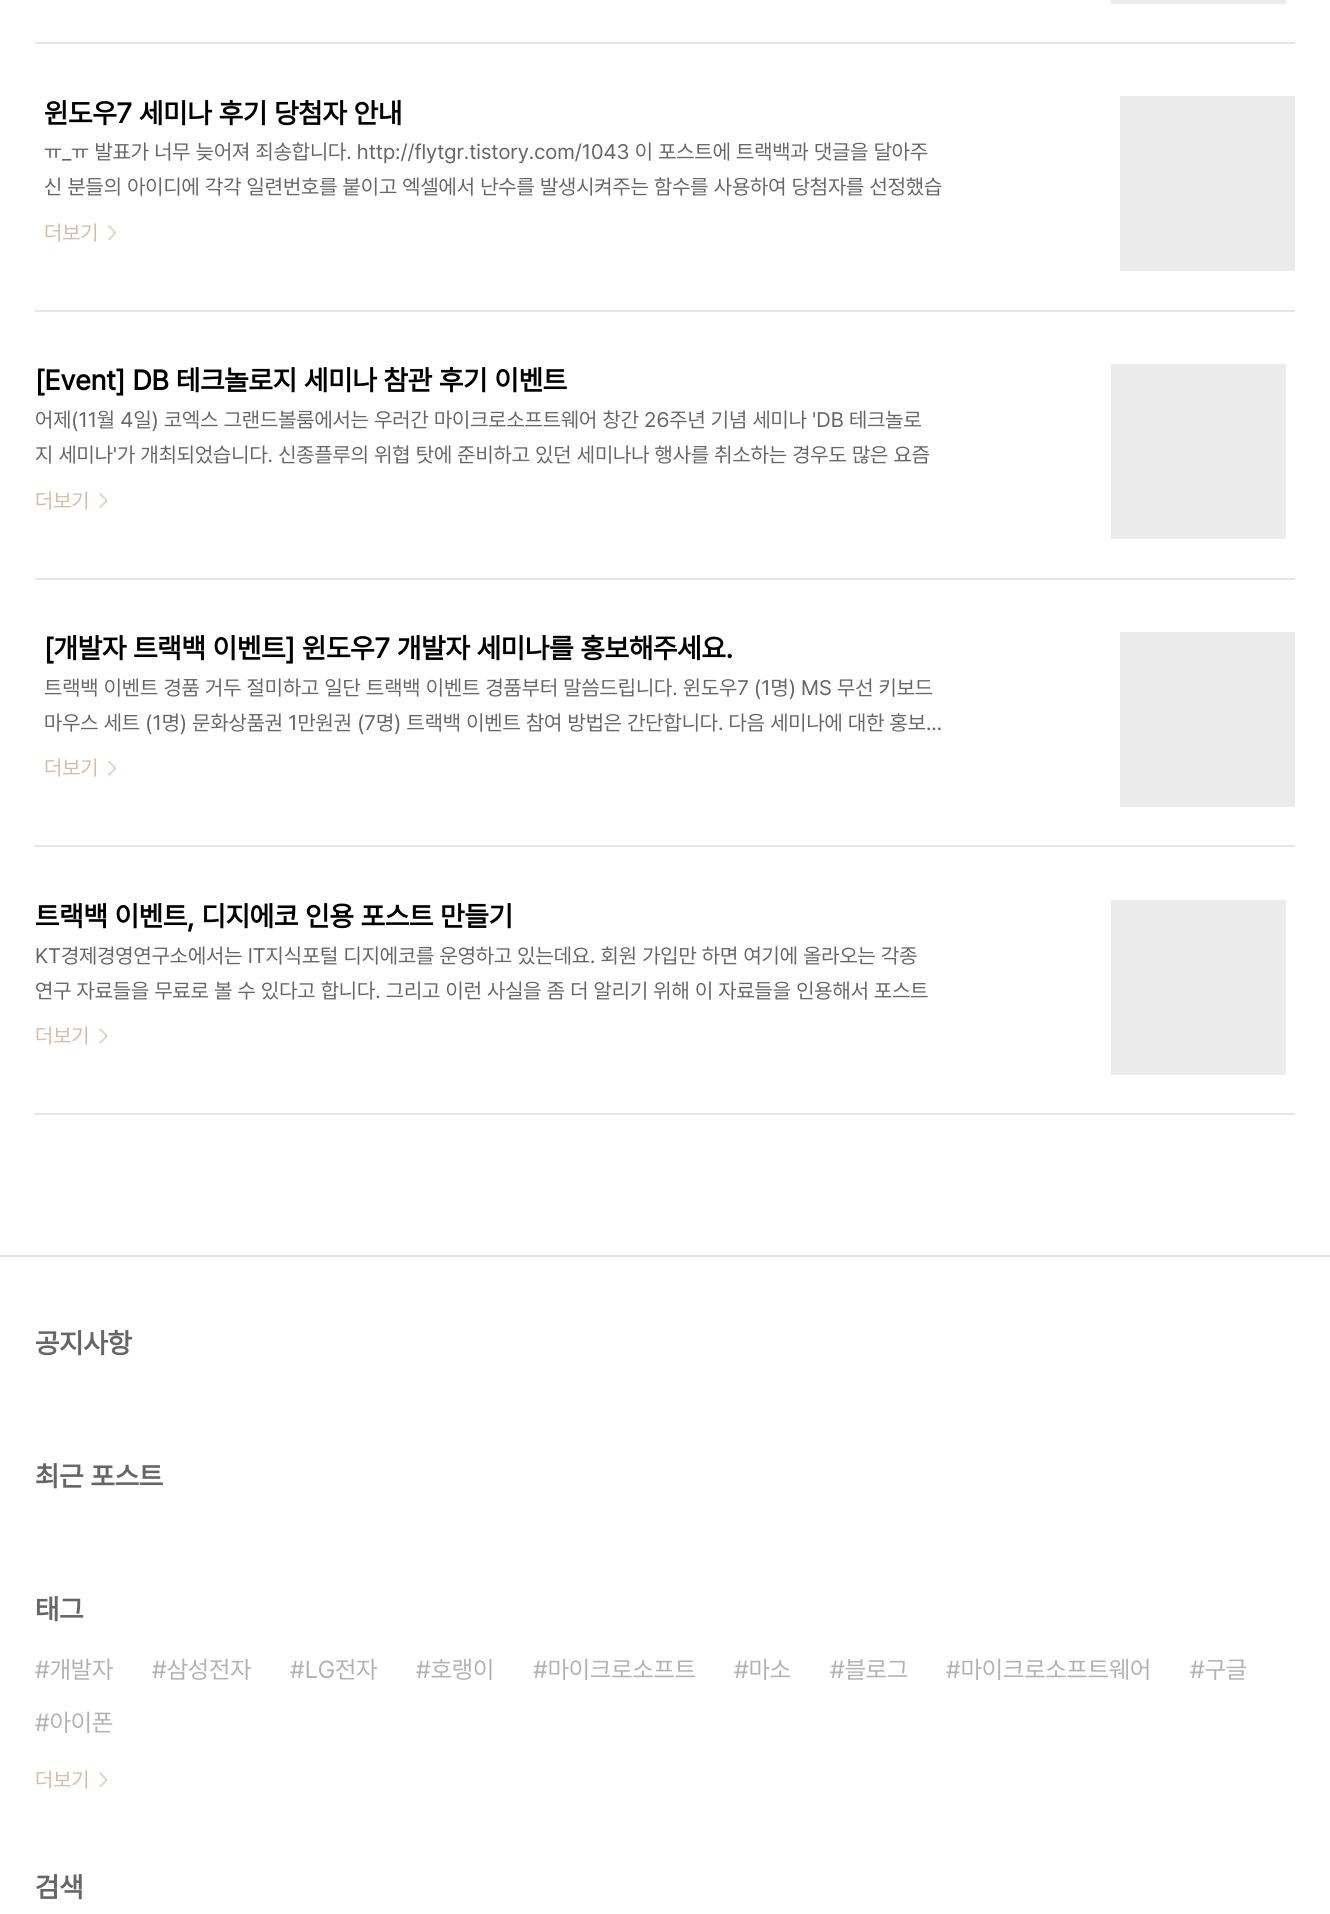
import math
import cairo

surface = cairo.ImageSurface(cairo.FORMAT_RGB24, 1330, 1914)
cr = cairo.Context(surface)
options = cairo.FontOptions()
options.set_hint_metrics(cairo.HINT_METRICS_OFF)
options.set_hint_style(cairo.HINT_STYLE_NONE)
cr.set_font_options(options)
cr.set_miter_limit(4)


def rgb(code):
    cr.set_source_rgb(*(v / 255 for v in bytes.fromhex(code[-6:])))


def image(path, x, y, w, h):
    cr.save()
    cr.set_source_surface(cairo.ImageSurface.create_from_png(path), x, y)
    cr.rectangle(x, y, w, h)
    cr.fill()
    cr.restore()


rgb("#ffffff")
cr.paint()
for x, y, w, h, color in [
    (35, 42, 1260, 2, "#e6e6e6"),
    (1111, 0, 175, 4, "#ebebeb"),
    (35, 310, 1260, 2, "#e6e6e6"),
    (1120, 96, 175, 175, "#ebebeb"),
]:
    rgb(color)
    cr.rectangle(x, y, w, h)
    cr.fill()
image("img/1.png", 108, 225, 8, 15)
rgb("#e6e6e6")
cr.rectangle(35, 578, 1260, 2)
cr.fill()
rgb("#ebebeb")
cr.rectangle(1111, 364, 175, 175)
cr.fill()
image("img/2.png", 99, 493, 8, 15)
rgb("#e6e6e6")
cr.rectangle(35, 845, 1260, 2)
cr.fill()
rgb("#ebebeb")
cr.rectangle(1120, 632, 175, 175)
cr.fill()
image("img/3.png", 108, 761, 8, 15)
rgb("#e6e6e6")
cr.rectangle(35, 1113, 1260, 2)
cr.fill()
rgb("#ebebeb")
cr.rectangle(1111, 900, 175, 175)
cr.fill()
image("img/4.png", 99, 1029, 8, 14)
rgb("#e6e6e6")
cr.rectangle(0, 1255, 1330, 2)
cr.fill()
image("img/5.png", 99, 1772, 8, 15)
cr.select_font_face("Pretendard", cairo.FONT_SLANT_NORMAL, cairo.FONT_WEIGHT_BOLD)
cr.set_font_size(28)
rgb("#000000")
cr.move_to(44, 123)
cr.show_text("윈도우7 세미나 후기 당첨자 안내")
cr.select_font_face("Pretendard")
cr.set_font_size(21)
rgb("#666666")
cr.move_to(44, 159)
cr.show_text("ㅠ_ㅠ 발표가 너무 늦어져 죄송합니다. http://flytgr.tistory.com/1043 이 포스트에 트랙백과 댓글을 달아주")
cr.move_to(44, 194)
cr.show_text("신 분들의 아이디에 각각 일련번호를 붙이고 엑셀에서 난수를 발생시켜주는 함수를 사용하여 당첨자를 선정했습")
rgb("#d4bca7")
cr.move_to(44, 240)
cr.show_text("더보기")
cr.select_font_face("Pretendard", cairo.FONT_SLANT_NORMAL, cairo.FONT_WEIGHT_BOLD)
cr.set_font_size(28)
rgb("#000000")
cr.move_to(35, 390)
cr.show_text("[Event] DB 테크놀로지 세미나 참관 후기 이벤트")
cr.select_font_face("Pretendard")
cr.set_font_size(21)
rgb("#666666")
cr.move_to(35, 427)
cr.show_text("어제(11월 4일) 코엑스 그랜드볼룸에서는 우러간 마이크로소프트웨어 창간 26주년 기념 세미나 'DB 테크놀로")
cr.move_to(35, 462)
cr.show_text("지 세미나'가 개최되었습니다. 신종플루의 위협 탓에 준비하고 있던 세미나나 행사를 취소하는 경우도 많은 요즘")
rgb("#d4bca7")
cr.move_to(35, 508)
cr.show_text("더보기")
cr.select_font_face("Pretendard", cairo.FONT_SLANT_NORMAL, cairo.FONT_WEIGHT_BOLD)
cr.set_font_size(28)
rgb("#000000")
cr.move_to(44, 658)
cr.show_text("[개발자 트랙백 이벤트] 윈도우7 개발자 세미나를 홍보해주세요.")
cr.select_font_face("Pretendard")
cr.set_font_size(21)
rgb("#666666")
cr.move_to(44, 695)
cr.show_text("트랙백 이벤트 경품 거두 절미하고 일단 트랙백 이벤트 경품부터 말씀드립니다. 윈도우7 (1명) MS 무선 키보드")
cr.move_to(44, 730)
cr.show_text("마우스 세트 (1명) 문화상품권 1만원권 (7명) 트랙백 이벤트 참여 방법은 간단합니다. 다음 세미나에 대한 홍보…")
rgb("#d4bca7")
cr.move_to(44, 775)
cr.show_text("더보기")
cr.select_font_face("Pretendard", cairo.FONT_SLANT_NORMAL, cairo.FONT_WEIGHT_BOLD)
cr.set_font_size(28)
rgb("#000000")
cr.move_to(35, 926)
cr.show_text("트랙백 이벤트, 디지에코 인용 포스트 만들기")
cr.select_font_face("Pretendard")
cr.set_font_size(21)
rgb("#666666")
cr.move_to(35, 963)
cr.show_text("KT경제경영연구소에서는 IT지식포털 디지에코를 운영하고 있는데요. 회원 가입만 하면 여기에 올라오는 각종")
cr.move_to(35, 998)
cr.show_text("연구 자료들을 무료로 볼 수 있다고 합니다. 그리고 이런 사실을 좀 더 알리기 위해 이 자료들을 인용해서 포스트")
rgb("#d4bca7")
cr.move_to(35, 1043)
cr.show_text("더보기")
cr.select_font_face("Pretendard", cairo.FONT_SLANT_NORMAL, cairo.FONT_WEIGHT_BOLD)
cr.set_font_size(28)
rgb("#666666")
for x, y, s in [
    (35, 1353, "공지사항"),
    (35, 1486, "최근 포스트"),
    (35, 1619, "태그"),
]:
    cr.move_to(x, y)
    cr.show_text(s)
cr.select_font_face("Pretendard")
cr.set_font_size(24.5)
rgb("#b2b2b2")
for x, y, s in [
    (35, 1678, "#개발자"),
    (152, 1678, "#삼성전자"),
    (290, 1678, "#LG전자"),
    (416, 1678, "#호랭이"),
    (533, 1678, "#마이크로소프트"),
    (734, 1678, "#마소"),
    (830, 1678, "#블로그"),
    (946, 1678, "#마이크로소프트웨어"),
    (1190, 1678, "#구글"),
    (35, 1731, "#아이폰"),
]:
    cr.move_to(x, y)
    cr.show_text(s)
cr.set_font_size(21)
rgb("#d4bca7")
cr.move_to(35, 1787)
cr.show_text("더보기")
cr.select_font_face("Pretendard", cairo.FONT_SLANT_NORMAL, cairo.FONT_WEIGHT_BOLD)
cr.set_font_size(28)
rgb("#666666")
cr.move_to(35, 1897)
cr.show_text("검색")
surface.write_to_png("page.png")
